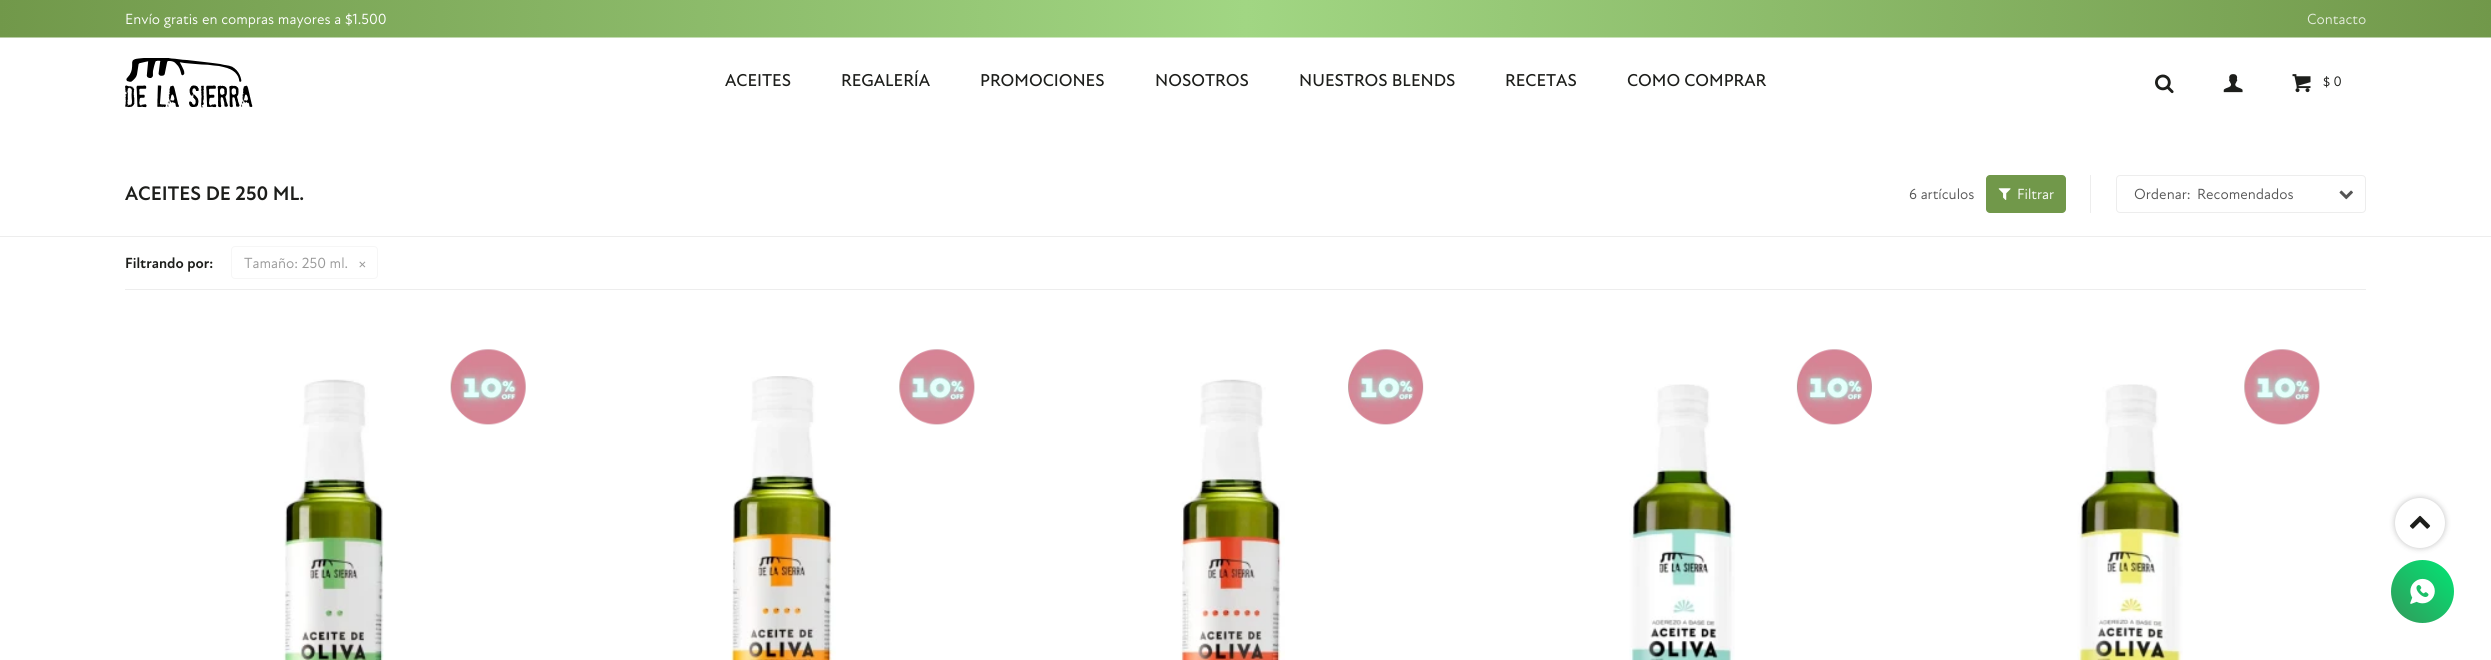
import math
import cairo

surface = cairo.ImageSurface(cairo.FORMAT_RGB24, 2491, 660)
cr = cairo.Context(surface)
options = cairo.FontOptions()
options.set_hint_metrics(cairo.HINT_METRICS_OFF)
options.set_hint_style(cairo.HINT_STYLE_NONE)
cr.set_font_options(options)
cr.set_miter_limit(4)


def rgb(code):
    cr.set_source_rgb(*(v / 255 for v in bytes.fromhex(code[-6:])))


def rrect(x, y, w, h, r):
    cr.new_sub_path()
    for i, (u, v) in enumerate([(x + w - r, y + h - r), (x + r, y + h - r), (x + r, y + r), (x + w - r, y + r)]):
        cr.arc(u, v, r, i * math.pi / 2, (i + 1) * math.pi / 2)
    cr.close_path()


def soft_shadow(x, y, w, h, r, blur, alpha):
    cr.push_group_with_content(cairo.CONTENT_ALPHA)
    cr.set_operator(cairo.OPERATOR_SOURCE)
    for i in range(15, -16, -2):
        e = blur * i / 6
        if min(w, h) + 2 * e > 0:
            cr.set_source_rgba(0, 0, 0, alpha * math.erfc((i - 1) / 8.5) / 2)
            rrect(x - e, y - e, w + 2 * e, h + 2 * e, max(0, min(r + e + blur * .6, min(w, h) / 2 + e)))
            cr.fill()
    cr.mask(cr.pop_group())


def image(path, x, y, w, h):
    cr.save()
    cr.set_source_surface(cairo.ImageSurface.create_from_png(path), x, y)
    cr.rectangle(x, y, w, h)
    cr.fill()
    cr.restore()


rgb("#ffffff")
cr.paint()
image("img/1.png", 0, 0, 2491, 38)
image("img/2.png", 125, 58, 128, 50)
image("img/3.png", 2155, 74, 19, 20)
image("img/4.png", 2223, 74, 20, 19)
image("img/5.png", 2292, 74, 19, 19)
rgb("#71984a")
rrect(1986, 175, 80, 38, 4)
cr.fill()
image("img/6.png", 1998, 188, 13, 12)
rgb("#ededed")
cr.rectangle(2090, 175, 1, 38)
cr.fill()
image("img/7.png", 2339, 190, 14, 10)
rrect(2116.5, 175.5, 249, 37, 3.5)
cr.set_line_width(1)
cr.stroke()
cr.rectangle(0, 236, 2491, 1)
cr.fill()
cr.rectangle(125, 289, 2241, 1)
cr.fill()
rrect(231.5, 246.5, 146, 32, 3.5)
rgb("#f6f6f6")
cr.stroke()
image("img/8.png", 283, 379, 101, 281)
image("img/9.png", 450, 349, 76, 76)
image("img/10.png", 730, 376, 106, 284)
image("img/11.png", 899, 349, 76, 76)
image("img/12.png", 1180, 379, 105, 281)
image("img/13.png", 1348, 349, 76, 76)
image("img/14.png", 1629, 384, 106, 276)
image("img/15.png", 1796, 349, 76, 76)
image("img/16.png", 2077, 384, 106, 276)
image("img/11.png", 2244, 349, 76, 76)
rgb("#000000")
soft_shadow(2395, 498, 50, 50, 25, 3, 0.25)
rgb("#ffffff")
cr.arc(2420, 523, 25, 0, 2 * math.pi)
cr.fill()
image("img/17.png", 2409, 515, 22, 14)
gradient = cairo.LinearGradient(2391, 623, 2454, 560)
gradient.add_color_stop_rgba(0, 0.2, 0.6, 0.353, 1)
gradient.add_color_stop_rgba(1, 0.004, 0.902, 0.459, 1)
cr.set_source(gradient)
cr.arc(2422.5, 591.5, 31.5, 0, 2 * math.pi)
cr.fill()
image("img/18.png", 2410, 578, 25, 26)
cr.select_font_face("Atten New")
cr.set_font_size(15)
rgb("#ffffff")
cr.move_to(125, 24)
cr.show_text("Envío gratis en compras mayores a $1.500")
rgb("#e4ecdc")
cr.move_to(2307, 24)
cr.show_text("Contacto")
cr.select_font_face("Atten New Medium")
cr.set_font_size(17.5)
rgb("#1d1e1b")
for x, y, s in [
    (725, 86, "ACEITES"),
    (841, 86, "REGALERÍA"),
    (980, 86, "PROMOCIONES"),
    (1155, 86, "NOSOTROS"),
    (1299, 86, "NUESTROS BLENDS"),
    (1505, 86, "RECETAS"),
    (1627, 86, "COMO COMPRAR"),
]:
    cr.move_to(x, y)
    cr.show_text(s)
cr.select_font_face("Atten New")
cr.set_font_size(14)
cr.move_to(2323, 86)
cr.show_text("$ 0")
cr.select_font_face("Atten New", cairo.FONT_SLANT_NORMAL, cairo.FONT_WEIGHT_BOLD)
cr.set_font_size(20)
cr.move_to(125, 200)
cr.show_text("ACEITES DE 250 ML.")
cr.select_font_face("Atten New")
cr.set_font_size(15)
rgb("#555555")
cr.move_to(1909, 199)
cr.show_text("6 artículos")
rgb("#ffffff")
cr.move_to(2017, 199)
cr.show_text("Filtrar")
rgb("#555555")
cr.move_to(2134, 199)
cr.show_text("Ordenar:")
cr.move_to(2197, 199)
cr.show_text("Recomendados")
cr.select_font_face("Atten New", cairo.FONT_SLANT_NORMAL, cairo.FONT_WEIGHT_BOLD)
rgb("#1d1e1b")
cr.move_to(125, 268)
cr.show_text("Filtrando por:")
cr.select_font_face("Atten New")
rgb("#999999")
cr.move_to(244, 268)
cr.show_text("Tamaño: 250 ml.")
cr.move_to(358, 268)
cr.show_text("×")
surface.write_to_png("page.png")
